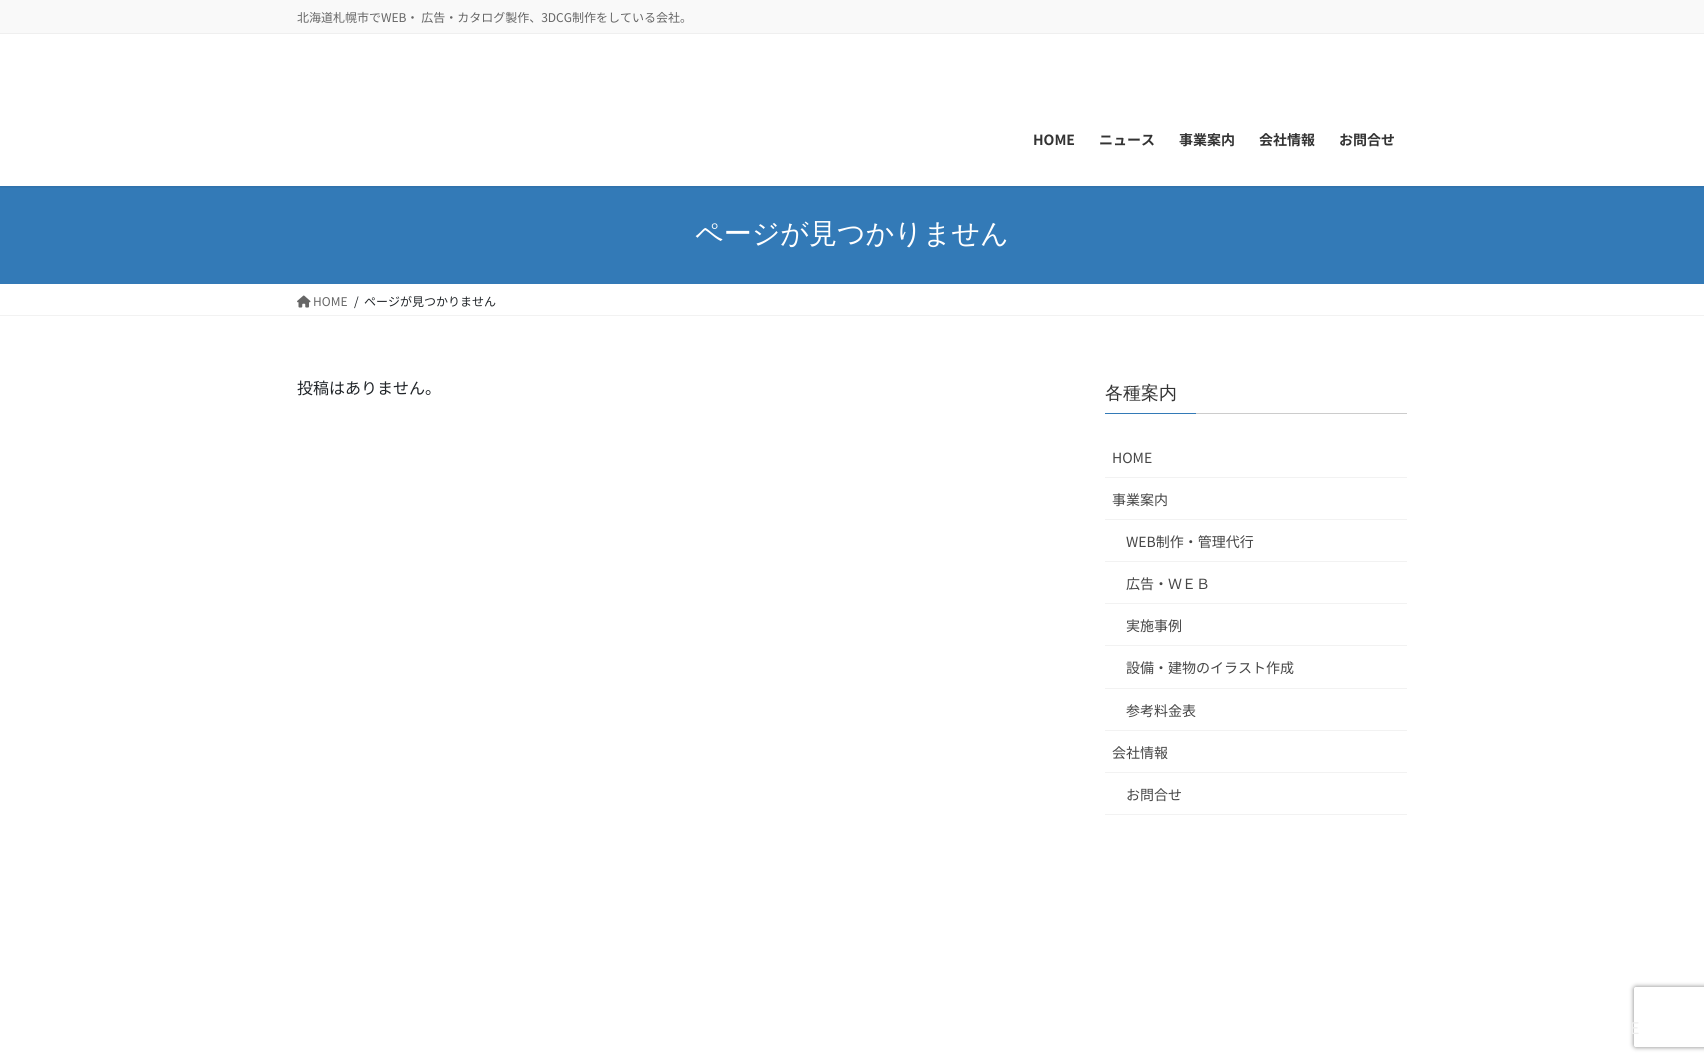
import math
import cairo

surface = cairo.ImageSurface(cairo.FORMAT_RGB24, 1704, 1061)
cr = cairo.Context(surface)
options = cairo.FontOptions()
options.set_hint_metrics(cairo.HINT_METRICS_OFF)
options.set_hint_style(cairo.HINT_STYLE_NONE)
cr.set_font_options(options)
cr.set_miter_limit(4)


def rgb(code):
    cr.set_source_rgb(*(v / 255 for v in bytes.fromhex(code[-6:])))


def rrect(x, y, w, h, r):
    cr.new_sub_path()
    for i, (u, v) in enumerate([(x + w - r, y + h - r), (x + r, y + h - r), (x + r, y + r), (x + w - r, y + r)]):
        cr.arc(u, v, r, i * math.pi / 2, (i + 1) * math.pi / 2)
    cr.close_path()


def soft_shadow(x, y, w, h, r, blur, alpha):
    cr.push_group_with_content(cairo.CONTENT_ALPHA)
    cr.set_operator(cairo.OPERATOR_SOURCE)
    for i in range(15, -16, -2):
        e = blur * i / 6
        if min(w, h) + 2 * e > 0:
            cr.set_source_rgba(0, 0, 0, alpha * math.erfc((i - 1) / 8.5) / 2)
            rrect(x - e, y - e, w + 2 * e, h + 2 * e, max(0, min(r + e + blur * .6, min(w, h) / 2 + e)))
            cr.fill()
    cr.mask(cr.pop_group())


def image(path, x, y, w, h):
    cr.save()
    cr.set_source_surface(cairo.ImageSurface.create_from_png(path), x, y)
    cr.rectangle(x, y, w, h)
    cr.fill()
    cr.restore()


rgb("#ffffff")
cr.paint()
rgb("#337ab7")
cr.rectangle(0, 186, 1704, 98)
cr.fill()
cr.save()
cr.rectangle(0, 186, 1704, 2)
cr.clip()
rgb("#000000")
soft_shadow(0, -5, 1704, 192, 0, 1.5, 0.1)
cr.restore()
for x, y, w, h, color in [
    (0, 0, 1704, 33, "#f9f9f9"),
    (0, 33, 1704, 1, "#efefef"),
    (0, 315, 1704, 1, "#f2f2f2"),
]:
    rgb(color)
    cr.rectangle(x, y, w, h)
    cr.fill()
image("img/1.png", 297, 295, 14, 13)
for x, y, w, h, color in [
    (1196, 413, 211, 1, "#cccccc"),
    (1105, 413, 91, 1, "#337ab7"),
    (1105, 477, 302, 1, "#f2f2f2"),
    (1105, 519, 302, 1, "#f2f2f2"),
    (1105, 561, 302, 1, "#f2f2f2"),
    (1105, 603, 302, 1, "#f2f2f2"),
    (1105, 645, 302, 1, "#f2f2f2"),
    (1105, 688, 302, 1, "#f2f2f2"),
    (1105, 730, 302, 1, "#f2f2f2"),
    (1105, 772, 302, 1, "#f2f2f2"),
    (1105, 814, 302, 1, "#f2f2f2"),
]:
    rgb(color)
    cr.rectangle(x, y, w, h)
    cr.fill()
cr.save()
cr.set_fill_rule(cairo.FILL_RULE_EVEN_ODD)
cr.new_path()
cr.move_to(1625, 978)
cr.line_to(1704, 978)
cr.line_to(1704, 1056)
cr.line_to(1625, 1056)
cr.close_path()
cr.move_to(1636, 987)
cr.line_to(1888, 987)
cr.curve_to(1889, 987, 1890, 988, 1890, 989)
cr.line_to(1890, 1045)
cr.curve_to(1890, 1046, 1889, 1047, 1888, 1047)
cr.line_to(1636, 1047)
cr.curve_to(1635, 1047, 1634, 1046, 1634, 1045)
cr.line_to(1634, 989)
cr.curve_to(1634, 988, 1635, 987, 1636, 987)
cr.close_path()
cr.clip()
rgb("#808080")
soft_shadow(1634, 987, 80, 60, 2, 2.5, 1)
cr.restore()
cr.select_font_face("Noto Sans JP")
cr.set_font_size(12)
rgb("#666666")
cr.move_to(297, 22)
cr.show_text("北海道札幌市でWEB・ 広告・カタログ製作、3DCG制作をしている会社。")
cr.select_font_face("Noto Sans JP", cairo.FONT_SLANT_NORMAL, cairo.FONT_WEIGHT_BOLD)
cr.set_font_size(14)
rgb("#333333")
for x, y, s in [
    (1033, 145, "HOME"),
    (1099, 145, "ニュース"),
    (1179, 145, "事業案内"),
    (1259, 145, "会社情報"),
    (1339, 145, "お問合せ"),
]:
    cr.move_to(x, y)
    cr.show_text(s)
cr.select_font_face("WenQuanYi Zen Hei Medium")
cr.set_font_size(28)
rgb("#ffffff")
cr.move_to(695, 243)
cr.show_text("ページが見つかりません")
cr.select_font_face("Noto Sans JP")
cr.set_font_size(12)
rgb("#666666")
cr.move_to(313, 306)
cr.show_text("HOME")
rgb("#212529")
cr.move_to(354, 306)
cr.show_text("/")
cr.move_to(364, 306)
cr.show_text("ページが見つかりません")
cr.set_font_size(16)
cr.move_to(297, 394)
cr.show_text("投稿はありません。")
cr.select_font_face("WenQuanYi Zen Hei Medium")
cr.set_font_size(18)
rgb("#333333")
cr.move_to(1105, 399)
cr.show_text("各種案内")
cr.select_font_face("Noto Sans JP")
cr.set_font_size(14)
rgb("#464646")
for x, y, s in [
    (1112, 463, "HOME"),
    (1112, 505, "事業案内"),
    (1126, 547, "WEB制作・管理代行"),
    (1126, 589, "広告・ＷＥＢ"),
    (1126, 631, "実施事例"),
    (1126, 673, "設備・建物のイラスト作成"),
    (1126, 716, "参考料金表"),
    (1112, 758, "会社情報"),
    (1126, 800, "お問合せ"),
]:
    cr.move_to(x, y)
    cr.show_text(s)
cr.set_font_size(16)
rgb("#eeeeee")
cr.move_to(1630, 1034)
cr.show_text("E")
surface.write_to_png("page.png")
